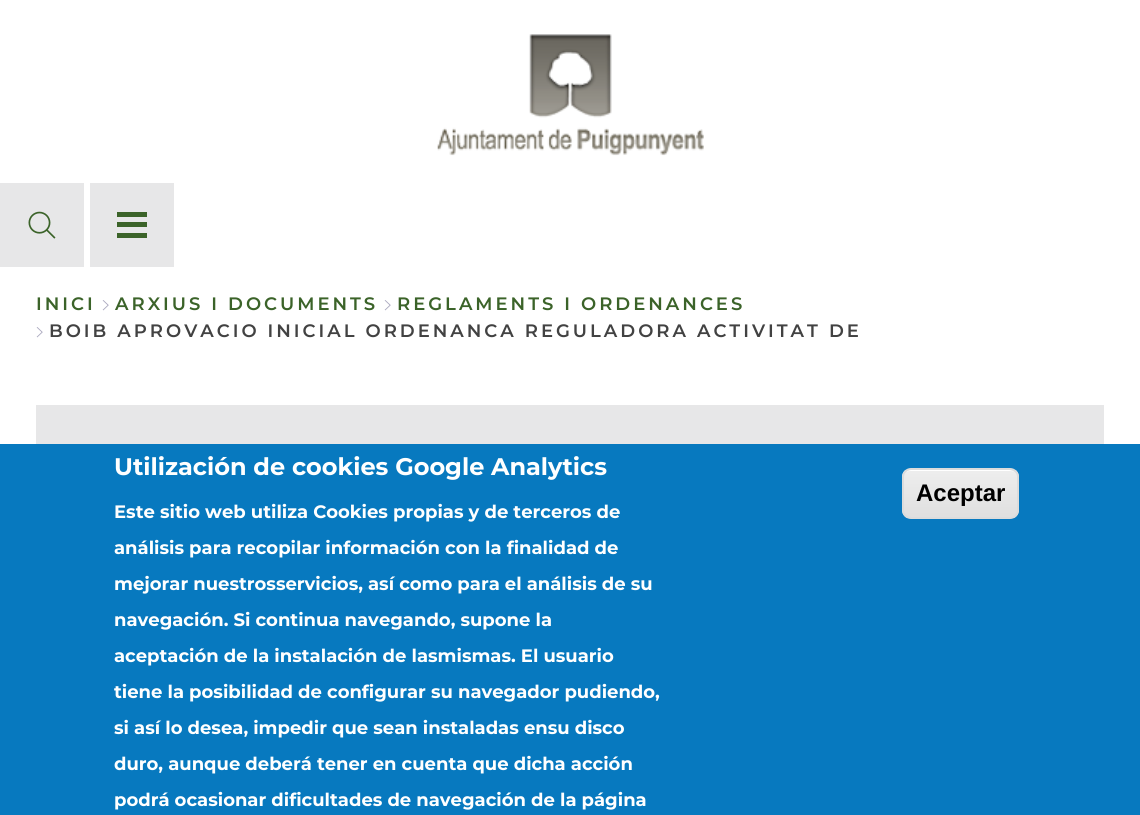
import math
import cairo

surface = cairo.ImageSurface(cairo.FORMAT_RGB24, 1140, 815)
cr = cairo.Context(surface)
options = cairo.FontOptions()
options.set_hint_metrics(cairo.HINT_METRICS_OFF)
options.set_hint_style(cairo.HINT_STYLE_NONE)
cr.set_font_options(options)
cr.set_miter_limit(4)


def rgb(code):
    cr.set_source_rgb(*(v / 255 for v in bytes.fromhex(code[-6:])))


def tracked(x, y, s, letter, word):
    cr.move_to(x, y)
    for ch in s:
        cr.show_text(ch)
        cr.rel_move_to(letter + word * (ch == ' '), 0)


def rrect(x, y, w, h, r):
    cr.new_sub_path()
    for i, (u, v) in enumerate([(x + w - r, y + h - r), (x + r, y + h - r), (x + r, y + r), (x + w - r, y + r)]):
        cr.arc(u, v, r, i * math.pi / 2, (i + 1) * math.pi / 2)
    cr.close_path()


def image(path, x, y, w, h):
    cr.save()
    cr.set_source_surface(cairo.ImageSurface.create_from_png(path), x, y)
    cr.rectangle(x, y, w, h)
    cr.fill()
    cr.restore()


rgb("#ffffff")
cr.paint()
image("img/1.png", 437, 34, 267, 122)
rgb("#e7e7e8")
cr.rectangle(0, 183, 84, 84)
cr.fill()
image("img/2.png", 28, 211, 28, 28)
for x, y, w, h, color in [
    (90, 183, 84, 84, "#e7e7e8"),
    (117, 222, 30, 5, "#3b6329"),
    (117, 212, 30, 5, "#3b6329"),
    (117, 233, 30, 5, "#3b6329"),
]:
    rgb(color)
    cr.rectangle(x, y, w, h)
    cr.fill()
image("img/3.png", 102, 300, 7, 11)
image("img/3.png", 384, 300, 7, 11)
image("img/3.png", 36, 327, 7, 11)
rgb("#e7e7e8")
cr.rectangle(36, 405, 1068, 39)
cr.fill()
rgb("#0779bf")
cr.rectangle(0, 444, 1140, 371)
cr.fill()
cr.save()
rrect(902, 468, 117, 51, 9)
cr.clip()
gradient = cairo.LinearGradient(960, 470, 960, 518)
gradient.add_color_stop_rgba(0.05, 0.929, 0.929, 0.929, 1)
gradient.add_color_stop_rgba(1, 0.875, 0.875, 0.875, 1)
cr.set_source(gradient)
cr.rectangle(902, 470, 117, 48)
cr.fill()
cr.restore()
rgb("#ffffff")
cr.new_path()
cr.move_to(910, 471)
cr.line_to(1010, 471)
cr.curve_to(1014, 471, 1017, 474, 1017, 478)
cr.curve_to(1017, 474, 1013, 470, 1009, 470)
cr.line_to(911, 470)
cr.curve_to(907, 470, 903, 474, 903, 478)
cr.curve_to(903, 474, 906, 471, 910, 471)
cr.close_path()
cr.fill()
rrect(903, 469, 115, 49, 8)
rgb("#dcdcdc")
cr.stroke()
cr.select_font_face("Montserrat SemiBold")
cr.set_font_size(18)
rgb("#3b6329")
for x, y, s in [
    (36, 310, "INICI"),
    (115, 310, "ARXIUS I DOCUMENTS"),
    (397, 310, "REGLAMENTS I ORDENANCES"),
]:
    tracked(x, y, s, 3, 0)
rgb("#424242")
tracked(49, 337, "BOIB APROVACIO INICIAL ORDENANCA REGULADORA ACTIVITAT DE", 3, 0)
cr.select_font_face("Montserrat", cairo.FONT_SLANT_NORMAL, cairo.FONT_WEIGHT_BOLD)
cr.set_font_size(24)
rgb("#ffffff")
cr.move_to(114, 475)
cr.show_text("Utilización de cookies Google Analytics")
cr.set_font_size(18)
for x, y, s in [
    (114, 518, "Este sitio web utiliza Cookies propias y de terceros de"),
    (114, 554, "análisis para recopilar información con la finalidad de"),
    (114, 590, "mejorar nuestrosservicios, así como para el análisis de su"),
    (114, 626, "navegación. Si continua navegando, supone la"),
    (114, 662, "aceptación de la instalación de lasmismas. El usuario"),
    (114, 698, "tiene la posibilidad de configurar su navegador pudiendo,"),
    (114, 734, "si así lo desea, impedir que sean instaladas ensu disco"),
    (114, 770, "duro, aunque deberá tener en cuenta que dicha acción"),
    (114, 806, "podrá ocasionar dificultades de navegación de la página"),
]:
    cr.move_to(x, y)
    cr.show_text(s)
cr.select_font_face("Liberation Sans", cairo.FONT_SLANT_NORMAL, cairo.FONT_WEIGHT_BOLD)
cr.set_font_size(24)
rgb("#000000")
cr.move_to(916, 501)
cr.show_text("Aceptar")
surface.write_to_png("page.png")
